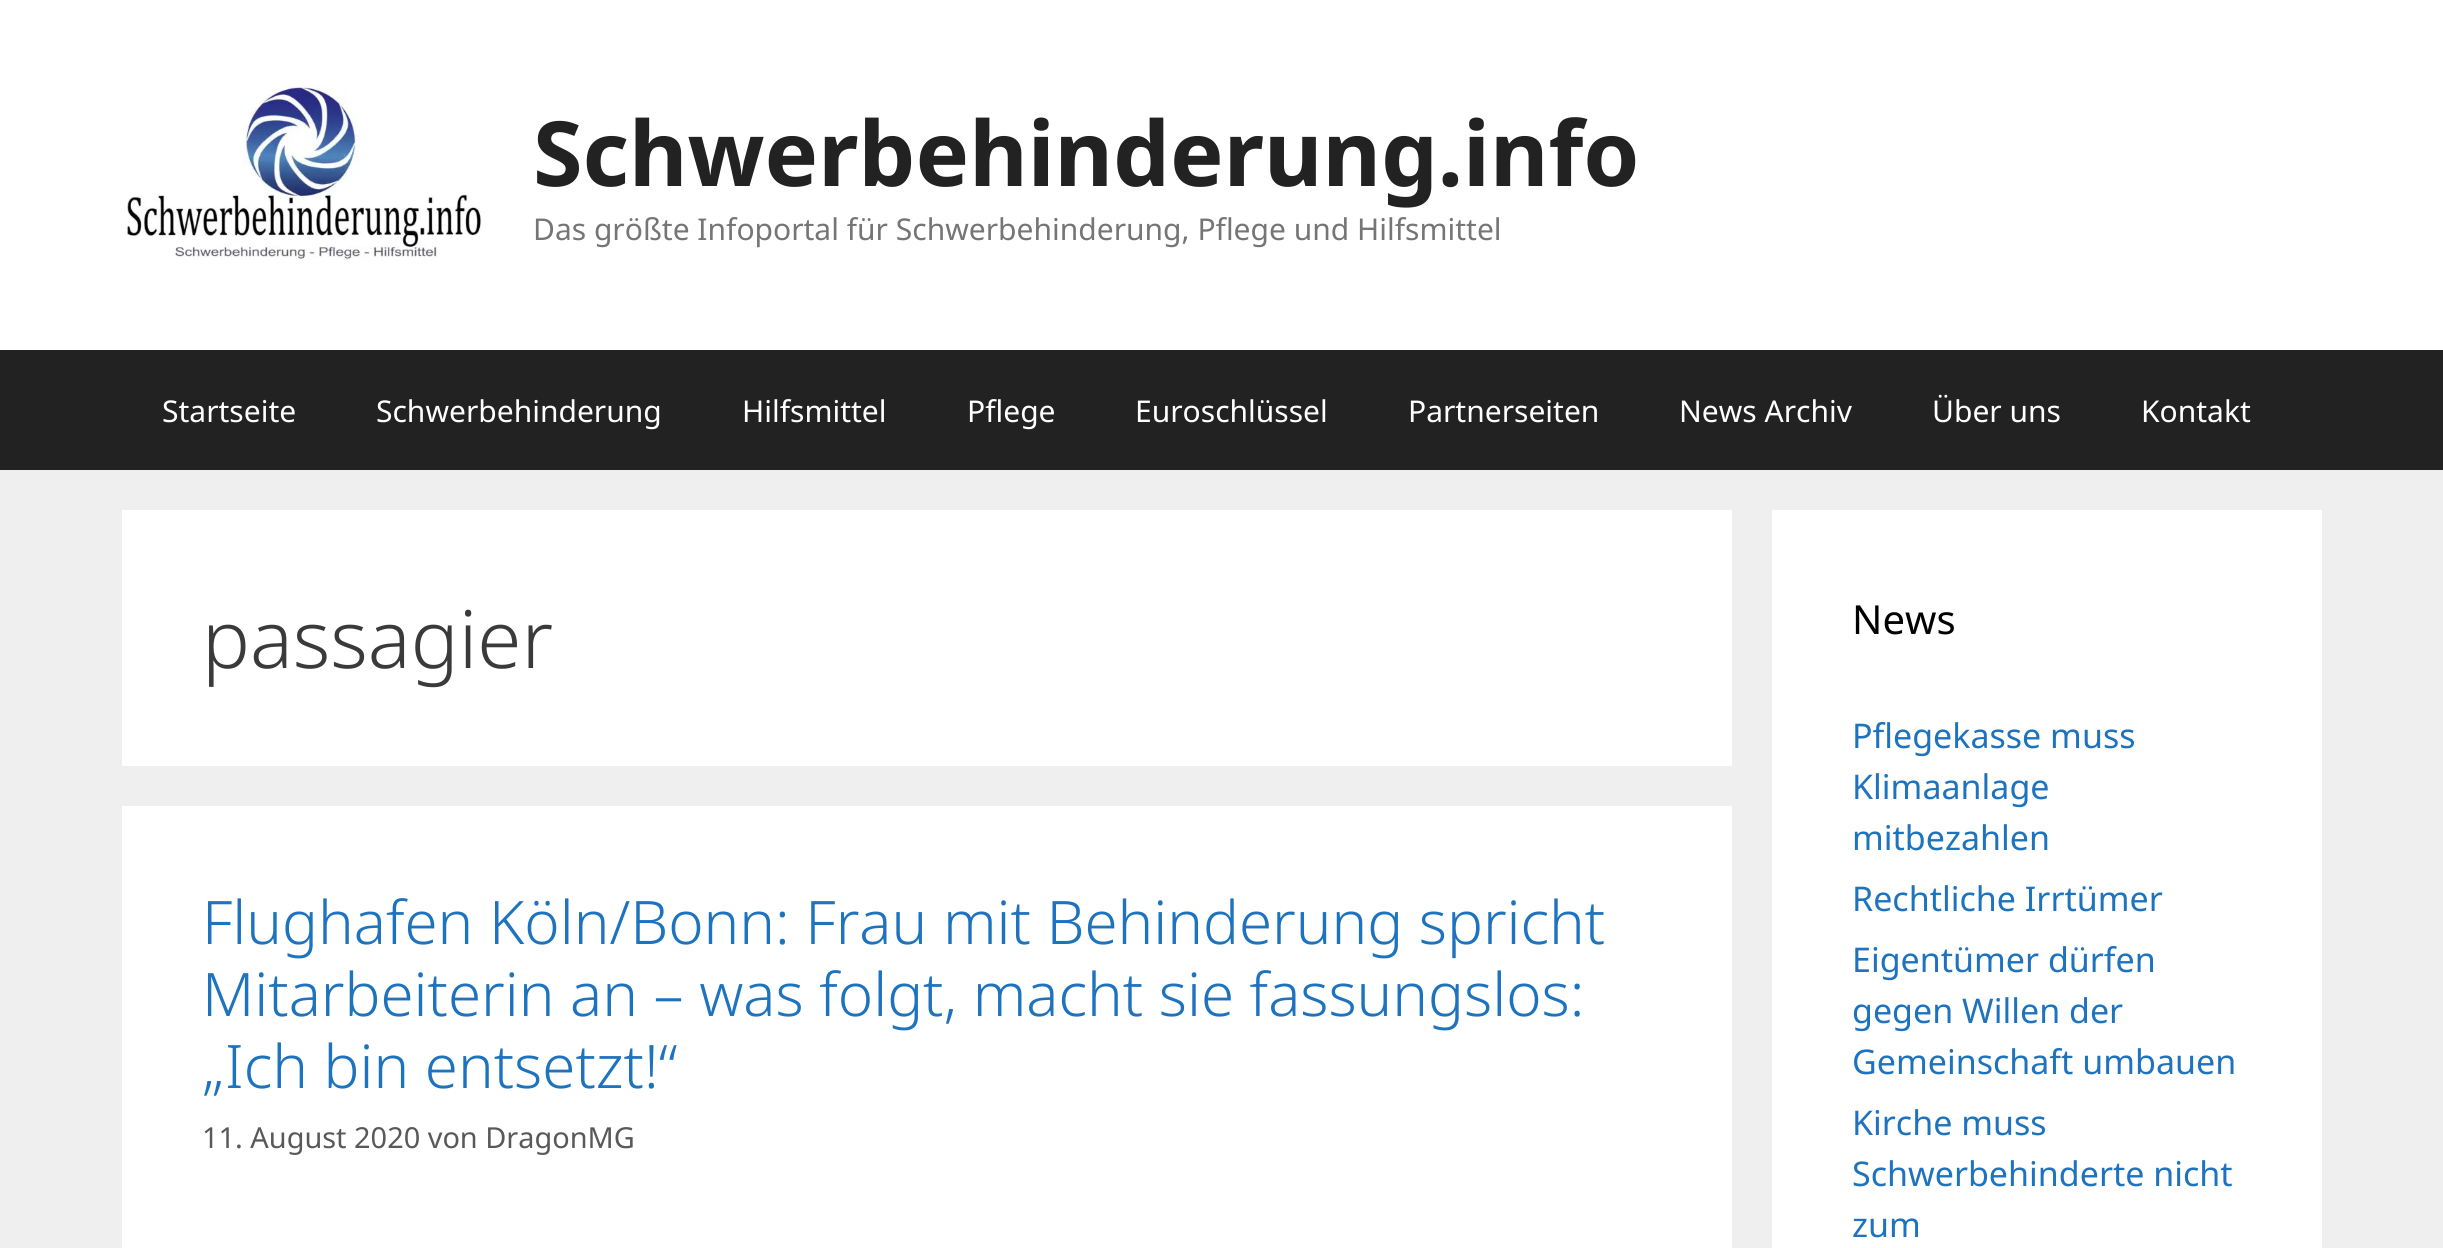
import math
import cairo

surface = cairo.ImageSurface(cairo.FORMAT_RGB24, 2443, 1248)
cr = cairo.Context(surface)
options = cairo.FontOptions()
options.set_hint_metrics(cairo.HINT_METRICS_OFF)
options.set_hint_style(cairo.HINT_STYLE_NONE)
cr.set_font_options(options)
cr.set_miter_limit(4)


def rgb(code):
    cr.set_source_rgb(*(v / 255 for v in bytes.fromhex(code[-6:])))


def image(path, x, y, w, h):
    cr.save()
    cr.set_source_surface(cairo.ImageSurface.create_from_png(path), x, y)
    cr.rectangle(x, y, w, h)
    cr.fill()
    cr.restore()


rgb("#efefef")
cr.paint()
rgb("#ffffff")
cr.rectangle(0, 0, 2443, 350)
cr.fill()
image("img/1.png", 125, 85, 357, 175)
for x, y, w, h, color in [
    (0, 350, 2443, 120, "#222222"),
    (122, 510, 1610, 256, "#ffffff"),
    (122, 806, 1610, 442, "#ffffff"),
    (1772, 510, 550, 738, "#ffffff"),
]:
    rgb(color)
    cr.rectangle(x, y, w, h)
    cr.fill()
cr.select_font_face("Noto Sans", cairo.FONT_SLANT_NORMAL, cairo.FONT_WEIGHT_BOLD)
cr.set_font_size(90)
rgb("#222222")
cr.move_to(533, 186)
cr.show_text("Schwerbehinderung.info")
cr.select_font_face("Noto Sans")
cr.set_font_size(30)
rgb("#757575")
cr.move_to(533, 240)
cr.show_text("Das größte Infoportal für Schwerbehinderung, Pflege und Hilfsmittel")
rgb("#ffffff")
for x, y, s in [
    (162, 422, "Startseite"),
    (376, 422, "Schwerbehinderung"),
    (742, 422, "Hilfsmittel"),
    (967, 422, "Pflege"),
    (1135, 422, "Euroschlüssel"),
    (1408, 422, "Partnerseiten"),
    (1679, 422, "News Archiv"),
    (1932, 422, "Über uns"),
    (2141, 422, "Kontakt"),
]:
    cr.move_to(x, y)
    cr.show_text(s)
cr.select_font_face("Noto Sans Light")
cr.set_font_size(80)
rgb("#3a3a3a")
cr.move_to(202, 668)
cr.show_text("passagier")
cr.set_font_size(60)
rgb("#1e73be")
for x, y, s in [
    (202, 944, "Flughafen Köln/Bonn: Frau mit Behinderung spricht"),
    (202, 1016, "Mitarbeiterin an – was folgt, macht sie fassungslos:"),
    (202, 1088, "„Ich bin entsetzt!“"),
]:
    cr.move_to(x, y)
    cr.show_text(s)
cr.select_font_face("Noto Sans")
cr.set_font_size(28.9)
rgb("#595959")
cr.move_to(202, 1148)
cr.show_text("11. August 2020 von DragonMG")
cr.set_font_size(40)
rgb("#000000")
cr.move_to(1852, 634)
cr.show_text("News")
cr.set_font_size(34)
rgb("#1e73be")
for x, y, s in [
    (1852, 748, "Pflegekasse muss"),
    (1852, 799, "Klimaanlage"),
    (1852, 850, "mitbezahlen"),
    (1852, 911, "Rechtliche Irrtümer"),
    (1852, 972, "Eigentümer dürfen"),
    (1852, 1023, "gegen Willen der"),
    (1852, 1074, "Gemeinschaft umbauen"),
    (1852, 1135, "Kirche muss"),
    (1852, 1186, "Schwerbehinderte nicht"),
    (1852, 1237, "zum"),
]:
    cr.move_to(x, y)
    cr.show_text(s)
surface.write_to_png("page.png")
